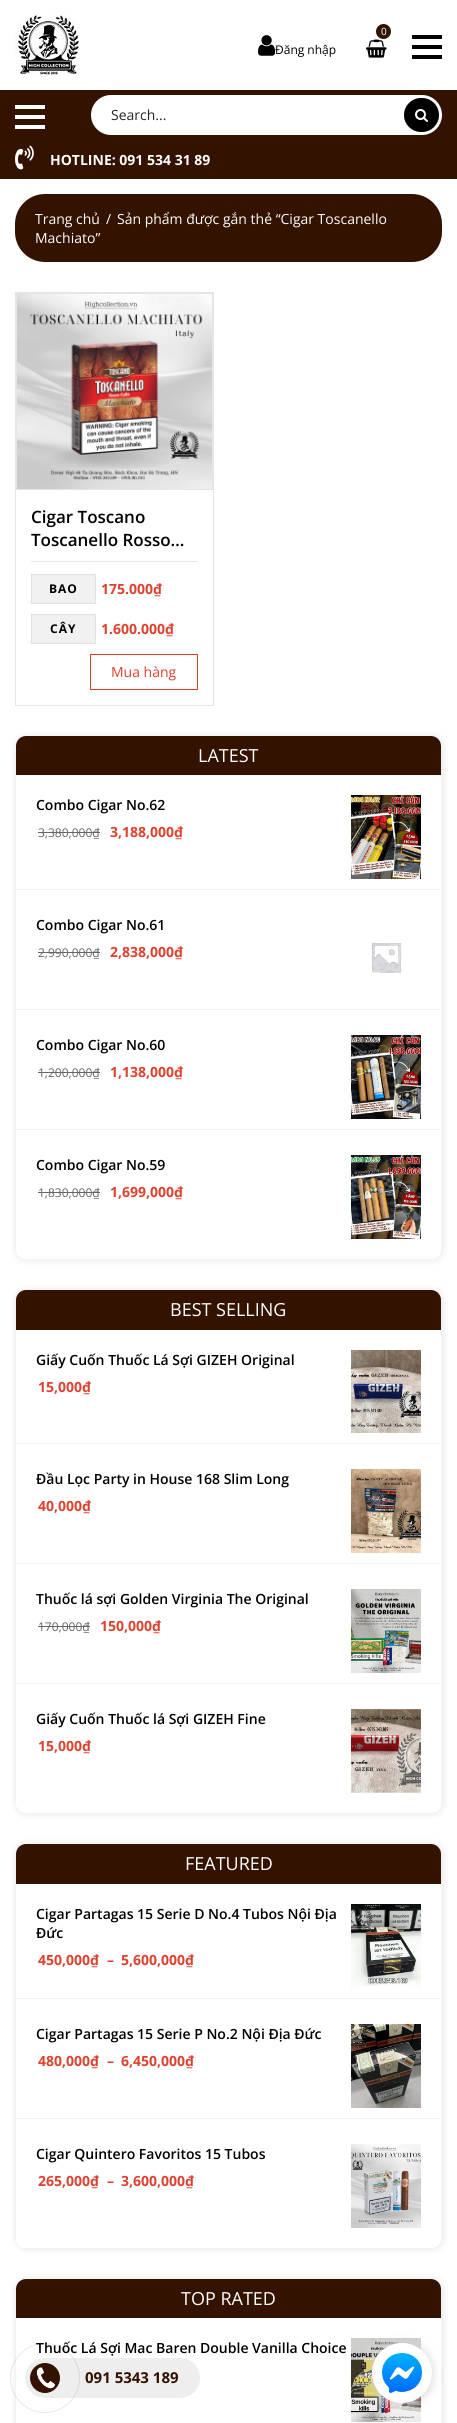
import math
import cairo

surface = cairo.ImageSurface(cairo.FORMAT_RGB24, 457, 2423)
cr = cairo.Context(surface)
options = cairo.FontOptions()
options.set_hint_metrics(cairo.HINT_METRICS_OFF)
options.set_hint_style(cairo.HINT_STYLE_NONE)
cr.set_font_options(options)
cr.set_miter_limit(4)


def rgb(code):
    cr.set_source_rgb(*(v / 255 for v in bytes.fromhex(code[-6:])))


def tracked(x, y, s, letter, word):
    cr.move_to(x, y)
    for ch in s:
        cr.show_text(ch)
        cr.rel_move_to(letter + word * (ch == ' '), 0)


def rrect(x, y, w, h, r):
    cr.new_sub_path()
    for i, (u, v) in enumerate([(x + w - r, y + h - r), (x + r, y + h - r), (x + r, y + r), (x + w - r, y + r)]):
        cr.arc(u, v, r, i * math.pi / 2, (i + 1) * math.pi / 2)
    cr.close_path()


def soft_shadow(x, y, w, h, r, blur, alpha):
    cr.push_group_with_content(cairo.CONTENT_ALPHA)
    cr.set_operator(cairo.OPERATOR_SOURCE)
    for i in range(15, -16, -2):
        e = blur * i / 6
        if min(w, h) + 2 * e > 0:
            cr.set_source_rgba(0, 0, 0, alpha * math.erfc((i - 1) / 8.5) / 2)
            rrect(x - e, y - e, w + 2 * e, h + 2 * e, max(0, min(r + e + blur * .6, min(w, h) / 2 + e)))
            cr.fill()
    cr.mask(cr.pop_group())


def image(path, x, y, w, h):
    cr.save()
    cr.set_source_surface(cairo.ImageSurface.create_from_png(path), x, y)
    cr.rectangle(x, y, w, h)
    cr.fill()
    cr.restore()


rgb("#ffffff")
cr.paint()
image("img/1.png", 15, 15, 65, 60)
rgb("#331200")
cr.arc(383.5, 31.5, 7.5, 0, 2 * math.pi)
cr.fill()
image("img/2.png", 366, 39, 21, 19)
image("img/3.png", 258, 35, 18, 21)
for x, y, w, h, color in [
    (412, 35, 30, 4, "#000000"),
    (412, 45, 30, 4, "#000000"),
    (412, 55, 30, 4, "#000000"),
    (0, 90, 457, 89, "#331200"),
    (15, 105, 30, 4, "#ffffff"),
    (15, 115, 30, 4, "#ffffff"),
    (15, 125, 30, 4, "#ffffff"),
]:
    rgb(color)
    cr.rectangle(x, y, w, h)
    cr.fill()
rrect(91, 95, 351, 40, 20)
cr.fill()
rgb("#000000")
rrect(404, 98, 35, 34, 17)
cr.fill()
image("img/4.png", 415, 109, 13, 13)
image("img/5.png", 15, 145, 19, 25)
rgb("#331200")
rrect(15, 194, 427, 68, 30)
cr.fill()
cr.rectangle(15.5, 292.5, 198, 413)
rgb("#e5e5e5")
cr.set_line_width(1)
cr.stroke()
cr.rectangle(16.5, 293.5, 196, 196)
cr.stroke()
image("img/6.png", 17, 294, 195, 195)
cr.rectangle(31, 561, 167, 1)
cr.fill()
rgb("#f1f1f1")
cr.rectangle(31.5, 574.5, 64, 29)
cr.fill_preserve()
rgb("#e1e1e1")
cr.stroke()
rgb("#f1f1f1")
cr.rectangle(31.5, 614.5, 64, 29)
cr.fill_preserve()
rgb("#e1e1e1")
cr.stroke()
cr.rectangle(90.5, 654.5, 107, 35)
rgb("#df412f")
cr.stroke()
rgb("#000000")
soft_shadow(16, 736, 427, 524, 10, 3.5, 0.1)
rgb("#ffffff")
rrect(15, 736, 427, 524, 10)
cr.fill()
rgb("#f2f2f2")
cr.set_fill_rule(cairo.FILL_RULE_EVEN_ODD)
cr.new_path()
cr.move_to(25, 736)
cr.line_to(432, 736)
cr.curve_to(438, 736, 442, 740, 442, 746)
cr.line_to(442, 1250)
cr.curve_to(442, 1256, 438, 1260, 432, 1260)
cr.line_to(25, 1260)
cr.curve_to(19, 1260, 15, 1256, 15, 1250)
cr.line_to(15, 746)
cr.curve_to(15, 740, 19, 736, 25, 736)
cr.close_path()
cr.move_to(25, 736)
cr.line_to(432, 736)
cr.curve_to(437, 736, 441, 740, 441, 746)
cr.line_to(441, 1250)
cr.curve_to(441, 1255, 437, 1259, 432, 1259)
cr.line_to(25, 1259)
cr.curve_to(20, 1259, 16, 1255, 16, 1250)
cr.line_to(16, 746)
cr.curve_to(16, 740, 20, 736, 25, 736)
cr.close_path()
cr.fill()
rgb("#331200")
cr.new_path()
cr.move_to(26, 736)
cr.line_to(431, 736)
cr.curve_to(436.5, 736, 441, 740.5, 441, 746)
cr.line_to(441, 775)
cr.line_to(16, 775)
cr.line_to(16, 746)
cr.curve_to(16, 740.5, 20.5, 736, 26, 736)
cr.close_path()
cr.fill()
rgb("#f2f2f2")
cr.rectangle(16, 889, 425, 1)
cr.fill()
image("img/7.png", 351, 795, 70, 84)
rgb("#666666")
cr.rectangle(38, 832, 62, 1)
cr.fill()
rgb("#f2f2f2")
cr.rectangle(16, 1009, 425, 1)
cr.fill()
image("img/8.png", 371, 943, 31, 30)
rgb("#666666")
cr.rectangle(38, 952, 62, 1)
cr.fill()
rgb("#f2f2f2")
cr.rectangle(16, 1129, 425, 1)
cr.fill()
image("img/9.png", 351, 1035, 70, 84)
rgb("#666666")
cr.rectangle(38, 1072, 62, 1)
cr.fill()
image("img/10.png", 351, 1155, 70, 84)
cr.rectangle(38, 1192, 62, 1)
cr.fill()
rgb("#000000")
soft_shadow(16, 1290, 427, 524, 10, 3.5, 0.1)
rgb("#ffffff")
rrect(15, 1290, 427, 524, 10)
cr.fill()
rgb("#f2f2f2")
cr.new_path()
cr.move_to(25, 1290)
cr.line_to(432, 1290)
cr.curve_to(438, 1290, 442, 1294, 442, 1300)
cr.line_to(442, 1804)
cr.curve_to(442, 1810, 438, 1814, 432, 1814)
cr.line_to(25, 1814)
cr.curve_to(19, 1814, 15, 1810, 15, 1804)
cr.line_to(15, 1300)
cr.curve_to(15, 1294, 19, 1290, 25, 1290)
cr.close_path()
cr.move_to(25, 1290)
cr.line_to(432, 1290)
cr.curve_to(437, 1290, 441, 1294, 441, 1300)
cr.line_to(441, 1804)
cr.curve_to(441, 1809, 437, 1813, 432, 1813)
cr.line_to(25, 1813)
cr.curve_to(20, 1813, 16, 1809, 16, 1804)
cr.line_to(16, 1300)
cr.curve_to(16, 1294, 20, 1290, 25, 1290)
cr.close_path()
cr.fill()
rgb("#331200")
cr.new_path()
cr.move_to(26, 1290)
cr.line_to(431, 1290)
cr.curve_to(436.5, 1290, 441, 1294.5, 441, 1300)
cr.line_to(441, 1330)
cr.line_to(16, 1330)
cr.line_to(16, 1300)
cr.curve_to(16, 1294.5, 20.5, 1290, 26, 1290)
cr.close_path()
cr.fill()
rgb("#f2f2f2")
cr.rectangle(16, 1443, 425, 1)
cr.fill()
image("img/11.png", 351, 1350, 70, 83)
cr.rectangle(16, 1563, 425, 1)
cr.fill()
image("img/12.png", 351, 1469, 70, 84)
cr.rectangle(16, 1683, 425, 1)
cr.fill()
image("img/13.png", 351, 1589, 70, 84)
rgb("#666666")
cr.rectangle(38, 1626, 52, 1)
cr.fill()
image("img/14.png", 351, 1709, 70, 84)
rgb("#000000")
soft_shadow(16, 1844, 427, 405, 10, 3.5, 0.1)
rgb("#ffffff")
rrect(15, 1844, 427, 405, 10)
cr.fill()
rgb("#f2f2f2")
cr.new_path()
cr.move_to(25, 1844)
cr.line_to(432, 1844)
cr.curve_to(438, 1844, 442, 1848, 442, 1854)
cr.line_to(442, 2239)
cr.curve_to(442, 2245, 438, 2249, 432, 2249)
cr.line_to(25, 2249)
cr.curve_to(19, 2249, 15, 2245, 15, 2239)
cr.line_to(15, 1854)
cr.curve_to(15, 1848, 19, 1844, 25, 1844)
cr.close_path()
cr.move_to(25, 1844)
cr.line_to(432, 1844)
cr.curve_to(437, 1844, 441, 1848, 441, 1854)
cr.line_to(441, 2239)
cr.curve_to(441, 2244, 437, 2248, 432, 2248)
cr.line_to(25, 2248)
cr.curve_to(20, 2248, 16, 2244, 16, 2239)
cr.line_to(16, 1854)
cr.curve_to(16, 1848, 20, 1844, 25, 1844)
cr.close_path()
cr.fill()
rgb("#331200")
cr.new_path()
cr.move_to(26, 1844)
cr.line_to(431, 1844)
cr.curve_to(436.5, 1844, 441, 1848.5, 441, 1854)
cr.line_to(441, 1884)
cr.line_to(16, 1884)
cr.line_to(16, 1854)
cr.curve_to(16, 1848.5, 20.5, 1844, 26, 1844)
cr.close_path()
cr.fill()
rgb("#f2f2f2")
cr.rectangle(16, 1998, 425, 1)
cr.fill()
image("img/15.png", 351, 1904, 70, 84)
cr.rectangle(16, 2118, 425, 1)
cr.fill()
image("img/16.png", 351, 2024, 70, 84)
image("img/17.png", 351, 2144, 70, 84)
rgb("#000000")
soft_shadow(16, 2279, 427, 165, 10, 3.5, 0.1)
rgb("#ffffff")
rrect(15, 2279, 427, 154, 10)
cr.fill()
rgb("#f2f2f2")
cr.new_path()
cr.move_to(25, 2279)
cr.line_to(432, 2279)
cr.curve_to(438, 2279, 442, 2283, 442, 2289)
cr.line_to(442, 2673)
cr.curve_to(442, 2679, 438, 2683, 432, 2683)
cr.line_to(25, 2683)
cr.curve_to(19, 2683, 15, 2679, 15, 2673)
cr.line_to(15, 2289)
cr.curve_to(15, 2283, 19, 2279, 25, 2279)
cr.close_path()
cr.move_to(25, 2279)
cr.line_to(432, 2279)
cr.curve_to(437, 2279, 441, 2283, 441, 2289)
cr.line_to(441, 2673)
cr.curve_to(441, 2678, 437, 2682, 432, 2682)
cr.line_to(25, 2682)
cr.curve_to(20, 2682, 16, 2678, 16, 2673)
cr.line_to(16, 2289)
cr.curve_to(16, 2283, 20, 2279, 25, 2279)
cr.close_path()
cr.fill()
rgb("#331200")
cr.new_path()
cr.move_to(26, 2279)
cr.line_to(431, 2279)
cr.curve_to(436.5, 2279, 441, 2283.5, 441, 2289)
cr.line_to(441, 2318)
cr.line_to(16, 2318)
cr.line_to(16, 2289)
cr.curve_to(16, 2283.5, 20.5, 2279, 26, 2279)
cr.close_path()
cr.fill()
image("img/18.png", 351, 2338, 70, 84)
rgb("#eeeeee")
rrect(25, 2358, 175, 40, 20)
cr.fill()
cr.arc(45, 2378, 34.5, 0, 2 * math.pi)
cr.set_source_rgba(0.2, 0.071, 0, 0.1)
cr.stroke()
rgb("#331200")
cr.arc(45, 2378, 15, 0, 2 * math.pi)
cr.fill()
image("img/19.png", 36, 2367, 19, 22)
rgb("#d2d2d2")
soft_shadow(372, 2344, 60, 60, 30, 5, 1)
rgb("#ffffff")
cr.arc(402, 2373, 30, 0, 2 * math.pi)
cr.fill()
image("img/20.png", 382, 2353, 40, 40)
cr.select_font_face("Open Sans")
cr.set_font_size(10)
cr.move_to(381, 35)
cr.show_text("0")
cr.set_font_size(12)
rgb("#000000")
cr.move_to(275, 54)
cr.show_text("Đăng nhập")
cr.set_font_size(14)
rgb("#262626")
cr.move_to(111, 120)
cr.show_text("Search...")
cr.select_font_face("Open Sans", cairo.FONT_SLANT_NORMAL, cairo.FONT_WEIGHT_BOLD)
rgb("#ffffff")
cr.move_to(50, 165)
cr.show_text("HOTLINE: 091 534 31 89")
cr.select_font_face("Open Sans")
for x, y, s in [
    (35, 224, "Trang chủ"),
    (106, 224, "/"),
    (117, 224, "Sản phẩm được gắn thẻ “Cigar Toscanello"),
    (35, 243, "Machiato”"),
]:
    cr.move_to(x, y)
    cr.show_text(s)
cr.select_font_face("Open Sans SemiBold")
cr.set_font_size(17)
rgb("#000000")
cr.move_to(31, 523)
cr.show_text("Cigar Toscano")
cr.move_to(31, 546)
cr.show_text("Toscanello Rosso…")
cr.select_font_face("Open Sans", cairo.FONT_SLANT_NORMAL, cairo.FONT_WEIGHT_BOLD)
cr.set_font_size(12)
tracked(49, 593, "BAO", 1, 0)
cr.set_font_size(14)
rgb("#df412f")
cr.move_to(101, 594)
cr.show_text("175.000₫")
cr.set_font_size(12)
rgb("#000000")
tracked(50, 633, "CÂY", 1, 0)
cr.set_font_size(14)
rgb("#df412f")
cr.move_to(101, 634)
cr.show_text("1.600.000₫")
cr.select_font_face("Open Sans")
cr.move_to(111, 677)
cr.show_text("Mua hàng")
cr.set_font_size(18)
rgb("#ffffff")
cr.move_to(198, 762)
cr.show_text("LATEST")
cr.select_font_face("Open Sans SemiBold")
cr.set_font_size(14)
rgb("#000000")
cr.move_to(36, 810)
cr.show_text("Combo Cigar No.62")
cr.select_font_face("Open Sans")
cr.set_font_size(12)
rgb("#666666")
cr.move_to(38, 837)
cr.show_text("3,380,000₫")
cr.select_font_face("Open Sans", cairo.FONT_SLANT_NORMAL, cairo.FONT_WEIGHT_BOLD)
cr.set_font_size(14)
rgb("#df412f")
cr.move_to(110, 837)
cr.show_text("3,188,000₫")
cr.select_font_face("Open Sans SemiBold")
rgb("#000000")
cr.move_to(36, 930)
cr.show_text("Combo Cigar No.61")
cr.select_font_face("Open Sans")
cr.set_font_size(12)
rgb("#666666")
cr.move_to(38, 957)
cr.show_text("2,990,000₫")
cr.select_font_face("Open Sans", cairo.FONT_SLANT_NORMAL, cairo.FONT_WEIGHT_BOLD)
cr.set_font_size(14)
rgb("#df412f")
cr.move_to(110, 957)
cr.show_text("2,838,000₫")
cr.select_font_face("Open Sans SemiBold")
rgb("#000000")
cr.move_to(36, 1050)
cr.show_text("Combo Cigar No.60")
cr.select_font_face("Open Sans")
cr.set_font_size(12)
rgb("#666666")
cr.move_to(38, 1077)
cr.show_text("1,200,000₫")
cr.select_font_face("Open Sans", cairo.FONT_SLANT_NORMAL, cairo.FONT_WEIGHT_BOLD)
cr.set_font_size(14)
rgb("#df412f")
cr.move_to(110, 1077)
cr.show_text("1,138,000₫")
cr.select_font_face("Open Sans SemiBold")
rgb("#000000")
cr.move_to(36, 1170)
cr.show_text("Combo Cigar No.59")
cr.select_font_face("Open Sans")
cr.set_font_size(12)
rgb("#666666")
cr.move_to(38, 1197)
cr.show_text("1,830,000₫")
cr.select_font_face("Open Sans", cairo.FONT_SLANT_NORMAL, cairo.FONT_WEIGHT_BOLD)
cr.set_font_size(14)
rgb("#df412f")
cr.move_to(110, 1197)
cr.show_text("1,699,000₫")
cr.select_font_face("Open Sans")
cr.set_font_size(18)
rgb("#ffffff")
cr.move_to(170, 1316)
cr.show_text("BEST SELLING")
cr.select_font_face("Open Sans SemiBold")
cr.set_font_size(14)
rgb("#000000")
cr.move_to(36, 1365)
cr.show_text("Giấy Cuốn Thuốc Lá Sợi GIZEH Original")
cr.select_font_face("Open Sans", cairo.FONT_SLANT_NORMAL, cairo.FONT_WEIGHT_BOLD)
rgb("#df412f")
cr.move_to(38, 1392)
cr.show_text("15,000₫")
cr.select_font_face("Open Sans SemiBold")
rgb("#000000")
cr.move_to(36, 1484)
cr.show_text("Đầu Lọc Party in House 168 Slim Long")
cr.select_font_face("Open Sans", cairo.FONT_SLANT_NORMAL, cairo.FONT_WEIGHT_BOLD)
rgb("#df412f")
cr.move_to(38, 1511)
cr.show_text("40,000₫")
cr.select_font_face("Open Sans SemiBold")
rgb("#000000")
cr.move_to(36, 1604)
cr.show_text("Thuốc lá sợi Golden Virginia The Original")
cr.select_font_face("Open Sans")
cr.set_font_size(12)
rgb("#666666")
cr.move_to(38, 1631)
cr.show_text("170,000₫")
cr.select_font_face("Open Sans", cairo.FONT_SLANT_NORMAL, cairo.FONT_WEIGHT_BOLD)
cr.set_font_size(14)
rgb("#df412f")
cr.move_to(100, 1631)
cr.show_text("150,000₫")
cr.select_font_face("Open Sans SemiBold")
rgb("#000000")
cr.move_to(36, 1724)
cr.show_text("Giấy Cuốn Thuốc lá Sợi GIZEH Fine")
cr.select_font_face("Open Sans", cairo.FONT_SLANT_NORMAL, cairo.FONT_WEIGHT_BOLD)
rgb("#df412f")
cr.move_to(38, 1751)
cr.show_text("15,000₫")
cr.select_font_face("Open Sans")
cr.set_font_size(18)
rgb("#ffffff")
cr.move_to(185, 1870)
cr.show_text("FEATURED")
cr.select_font_face("Open Sans SemiBold")
cr.set_font_size(14)
rgb("#000000")
cr.move_to(36, 1919)
cr.show_text("Cigar Partagas 15 Serie D No.4 Tubos Nội Địa")
cr.move_to(36, 1938)
cr.show_text("Đức")
cr.select_font_face("Open Sans", cairo.FONT_SLANT_NORMAL, cairo.FONT_WEIGHT_BOLD)
rgb("#df412f")
for x, y, s in [
    (38, 1965, "450,000₫"),
    (107, 1965, "–"),
    (121, 1965, "5,600,000₫"),
]:
    cr.move_to(x, y)
    cr.show_text(s)
cr.select_font_face("Open Sans SemiBold")
rgb("#000000")
cr.move_to(36, 2039)
cr.show_text("Cigar Partagas 15 Serie P No.2 Nội Địa Đức")
cr.select_font_face("Open Sans", cairo.FONT_SLANT_NORMAL, cairo.FONT_WEIGHT_BOLD)
rgb("#df412f")
for x, y, s in [
    (38, 2066, "480,000₫"),
    (107, 2066, "–"),
    (121, 2066, "6,450,000₫"),
]:
    cr.move_to(x, y)
    cr.show_text(s)
cr.select_font_face("Open Sans SemiBold")
rgb("#000000")
cr.move_to(36, 2159)
cr.show_text("Cigar Quintero Favoritos 15 Tubos")
cr.select_font_face("Open Sans", cairo.FONT_SLANT_NORMAL, cairo.FONT_WEIGHT_BOLD)
rgb("#df412f")
for x, y, s in [
    (38, 2186, "265,000₫"),
    (107, 2186, "–"),
    (121, 2186, "3,600,000₫"),
]:
    cr.move_to(x, y)
    cr.show_text(s)
cr.select_font_face("Open Sans")
cr.set_font_size(18)
rgb("#ffffff")
cr.move_to(181, 2305)
cr.show_text("TOP RATED")
cr.select_font_face("Open Sans SemiBold")
cr.set_font_size(14)
rgb("#000000")
cr.move_to(36, 2353)
cr.show_text("Thuốc Lá Sợi Mac Baren Double Vanilla Choice")
cr.select_font_face("Open Sans", cairo.FONT_SLANT_NORMAL, cairo.FONT_WEIGHT_BOLD)
cr.set_font_size(15)
rgb("#331200")
cr.move_to(85, 2383)
cr.show_text("091 5343 189")
surface.write_to_png("page.png")
